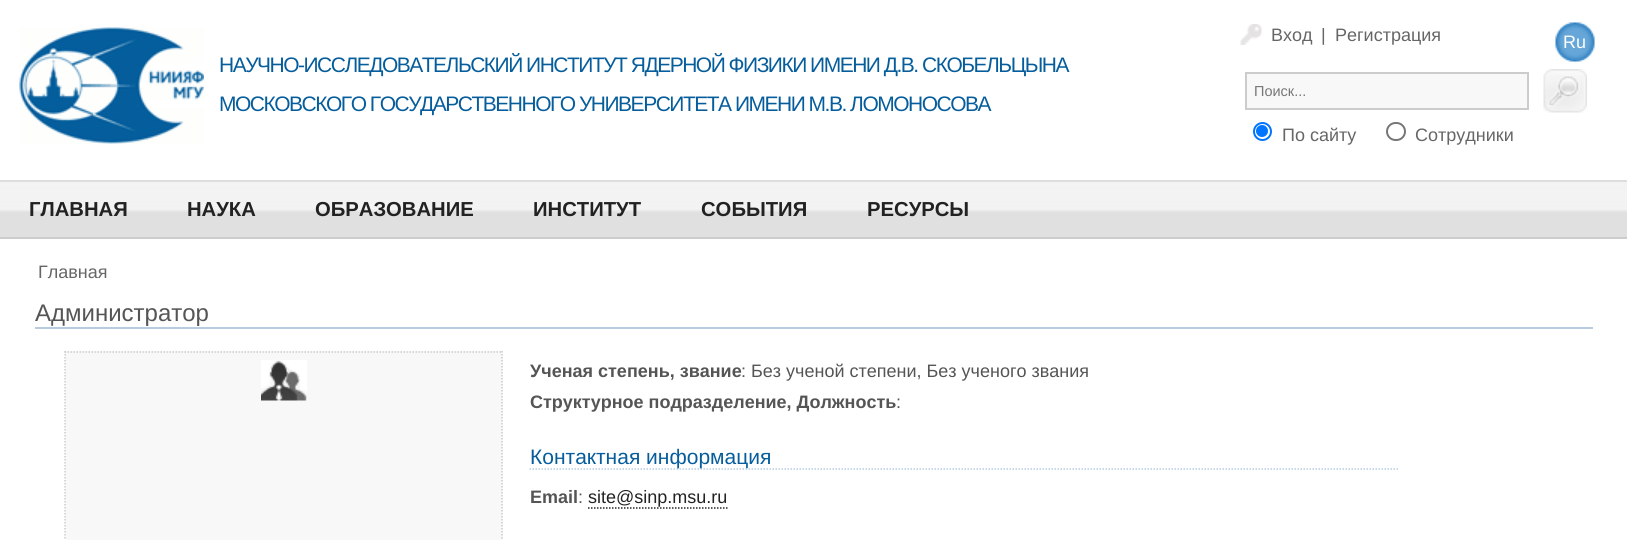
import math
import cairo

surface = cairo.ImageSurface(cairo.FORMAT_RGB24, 1627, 540)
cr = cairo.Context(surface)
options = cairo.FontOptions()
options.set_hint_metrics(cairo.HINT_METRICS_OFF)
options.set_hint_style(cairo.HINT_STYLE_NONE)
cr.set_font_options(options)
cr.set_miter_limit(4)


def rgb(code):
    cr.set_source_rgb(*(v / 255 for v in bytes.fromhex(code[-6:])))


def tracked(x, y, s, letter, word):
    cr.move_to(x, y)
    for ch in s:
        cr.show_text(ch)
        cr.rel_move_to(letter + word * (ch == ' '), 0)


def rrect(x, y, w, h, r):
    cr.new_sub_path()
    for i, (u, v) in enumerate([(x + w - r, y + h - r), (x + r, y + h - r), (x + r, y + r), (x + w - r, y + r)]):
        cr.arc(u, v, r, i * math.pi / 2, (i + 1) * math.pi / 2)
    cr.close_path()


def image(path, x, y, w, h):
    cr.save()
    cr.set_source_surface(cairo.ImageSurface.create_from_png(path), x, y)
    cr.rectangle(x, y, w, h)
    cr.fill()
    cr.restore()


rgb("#ffffff")
cr.paint()
image("img/1.png", 19, 27, 185, 117)
image("img/2.png", 1240, 24, 22, 21)
image("img/3.png", 1555, 22, 40, 40)
rgb("#f8f8f8")
cr.rectangle(1246, 73, 282, 36)
cr.fill_preserve()
rgb("#cccccc")
cr.stroke()
image("img/4.png", 1543, 69, 44, 44)
cr.arc(1262.5, 131.5, 8.5, 0, 2 * math.pi)
rgb("#0075ff")
cr.stroke()
cr.arc(1262, 131, 6, 0, 2 * math.pi)
cr.fill()
rrect(1387, 123, 18, 17, 8.5)
rgb("#767676")
cr.stroke()
image("img/5.png", 0, 182, 1627, 55)
for x, y, w, h, color in [
    (0, 180, 1627, 2, "#dddddd"),
    (0, 237, 1627, 2, "#cccccc"),
    (35, 327, 1558, 2, "#b7cce1"),
    (65, 351, 438, 189, "#f8f8f8"),
]:
    rgb(color)
    cr.rectangle(x, y, w, h)
    cr.fill()
cr.new_path()
cr.move_to(64.5, 352)
cr.line_to(502.5, 352)
rgb("#cccccc")
cr.set_line_width(1.5)
cr.set_dash([1.5, 1.5])
cr.stroke()
cr.new_path()
cr.move_to(502, 351)
cr.line_to(502, 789)
cr.stroke()
cr.new_path()
cr.move_to(65, 351)
cr.line_to(65, 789)
cr.stroke()
image("img/6.png", 261, 360, 46, 41)
cr.new_path()
cr.move_to(529.5, 469)
cr.line_to(1399.5, 469)
rgb("#b7cce1")
cr.stroke()
cr.new_path()
cr.move_to(588, 508)
cr.line_to(727.5, 508)
rgb("#222222")
cr.stroke()
cr.select_font_face("Liberation Sans")
cr.set_font_size(18)
rgb("#666666")
for x, y, s in [
    (1271, 41, "Вход"),
    (1321, 41, "|"),
    (1335, 41, "Регистрация"),
]:
    cr.move_to(x, y)
    cr.show_text(s)
rgb("#ffffff")
cr.move_to(1563, 48)
cr.show_text("Ru")
cr.set_font_size(21)
rgb("#065d9c")
tracked(219, 72, "НАУЧНО-ИССЛЕДОВАТЕЛЬСКИЙ ИНСТИТУТ ЯДЕРНОЙ ФИЗИКИ ИМЕНИ Д.В. СКОБЕЛЬЦЫНА", -1.5, 0)
tracked(219, 111, "МОСКОВСКОГО ГОСУДАРСТВЕННОГО УНИВЕРСИТЕТА ИМЕНИ М.В. ЛОМОНОСОВА", -1.5, 0)
cr.set_font_size(14.5)
rgb("#777777")
cr.move_to(1254, 96)
cr.show_text("Поиск...")
cr.set_font_size(18)
rgb("#666666")
cr.move_to(1282, 141)
cr.show_text("По сайту")
cr.move_to(1415, 141)
cr.show_text("Сотрудники")
cr.select_font_face("Liberation Sans", cairo.FONT_SLANT_NORMAL, cairo.FONT_WEIGHT_BOLD)
cr.set_font_size(20.25)
rgb("#222222")
for x, y, s in [
    (29, 216, "ГЛАВНАЯ"),
    (187, 216, "НАУКА"),
    (315, 216, "ОБРАЗОВАНИЕ"),
    (533, 216, "ИНСТИТУТ"),
    (701, 216, "СОБЫТИЯ"),
    (867, 216, "РЕСУРСЫ"),
]:
    cr.move_to(x, y)
    cr.show_text(s)
cr.select_font_face("Liberation Sans")
cr.set_font_size(18)
rgb("#666666")
cr.move_to(38, 278)
cr.show_text("Главная")
cr.set_font_size(24)
rgb("#555555")
cr.move_to(35, 321)
cr.show_text("Администратор")
cr.select_font_face("Liberation Sans", cairo.FONT_SLANT_NORMAL, cairo.FONT_WEIGHT_BOLD)
cr.set_font_size(18)
cr.move_to(530, 377)
cr.show_text("Ученая степень, звание")
cr.select_font_face("Liberation Sans")
cr.move_to(741, 377)
cr.show_text(": Без ученой степени, Без ученого звания")
cr.select_font_face("Liberation Sans", cairo.FONT_SLANT_NORMAL, cairo.FONT_WEIGHT_BOLD)
cr.move_to(530, 408)
cr.show_text("Структурное подразделение, Должность")
cr.select_font_face("Liberation Sans")
cr.move_to(896, 408)
cr.show_text(":")
cr.set_font_size(21)
rgb("#065d9c")
cr.move_to(530, 464)
cr.show_text("Контактная информация")
cr.select_font_face("Liberation Sans", cairo.FONT_SLANT_NORMAL, cairo.FONT_WEIGHT_BOLD)
cr.set_font_size(18)
rgb("#555555")
cr.move_to(530, 503)
cr.show_text("Email")
cr.select_font_face("Liberation Sans")
cr.move_to(578, 503)
cr.show_text(":")
rgb("#222222")
cr.move_to(588, 503)
cr.show_text("site@sinp.msu.ru")
surface.write_to_png("page.png")
